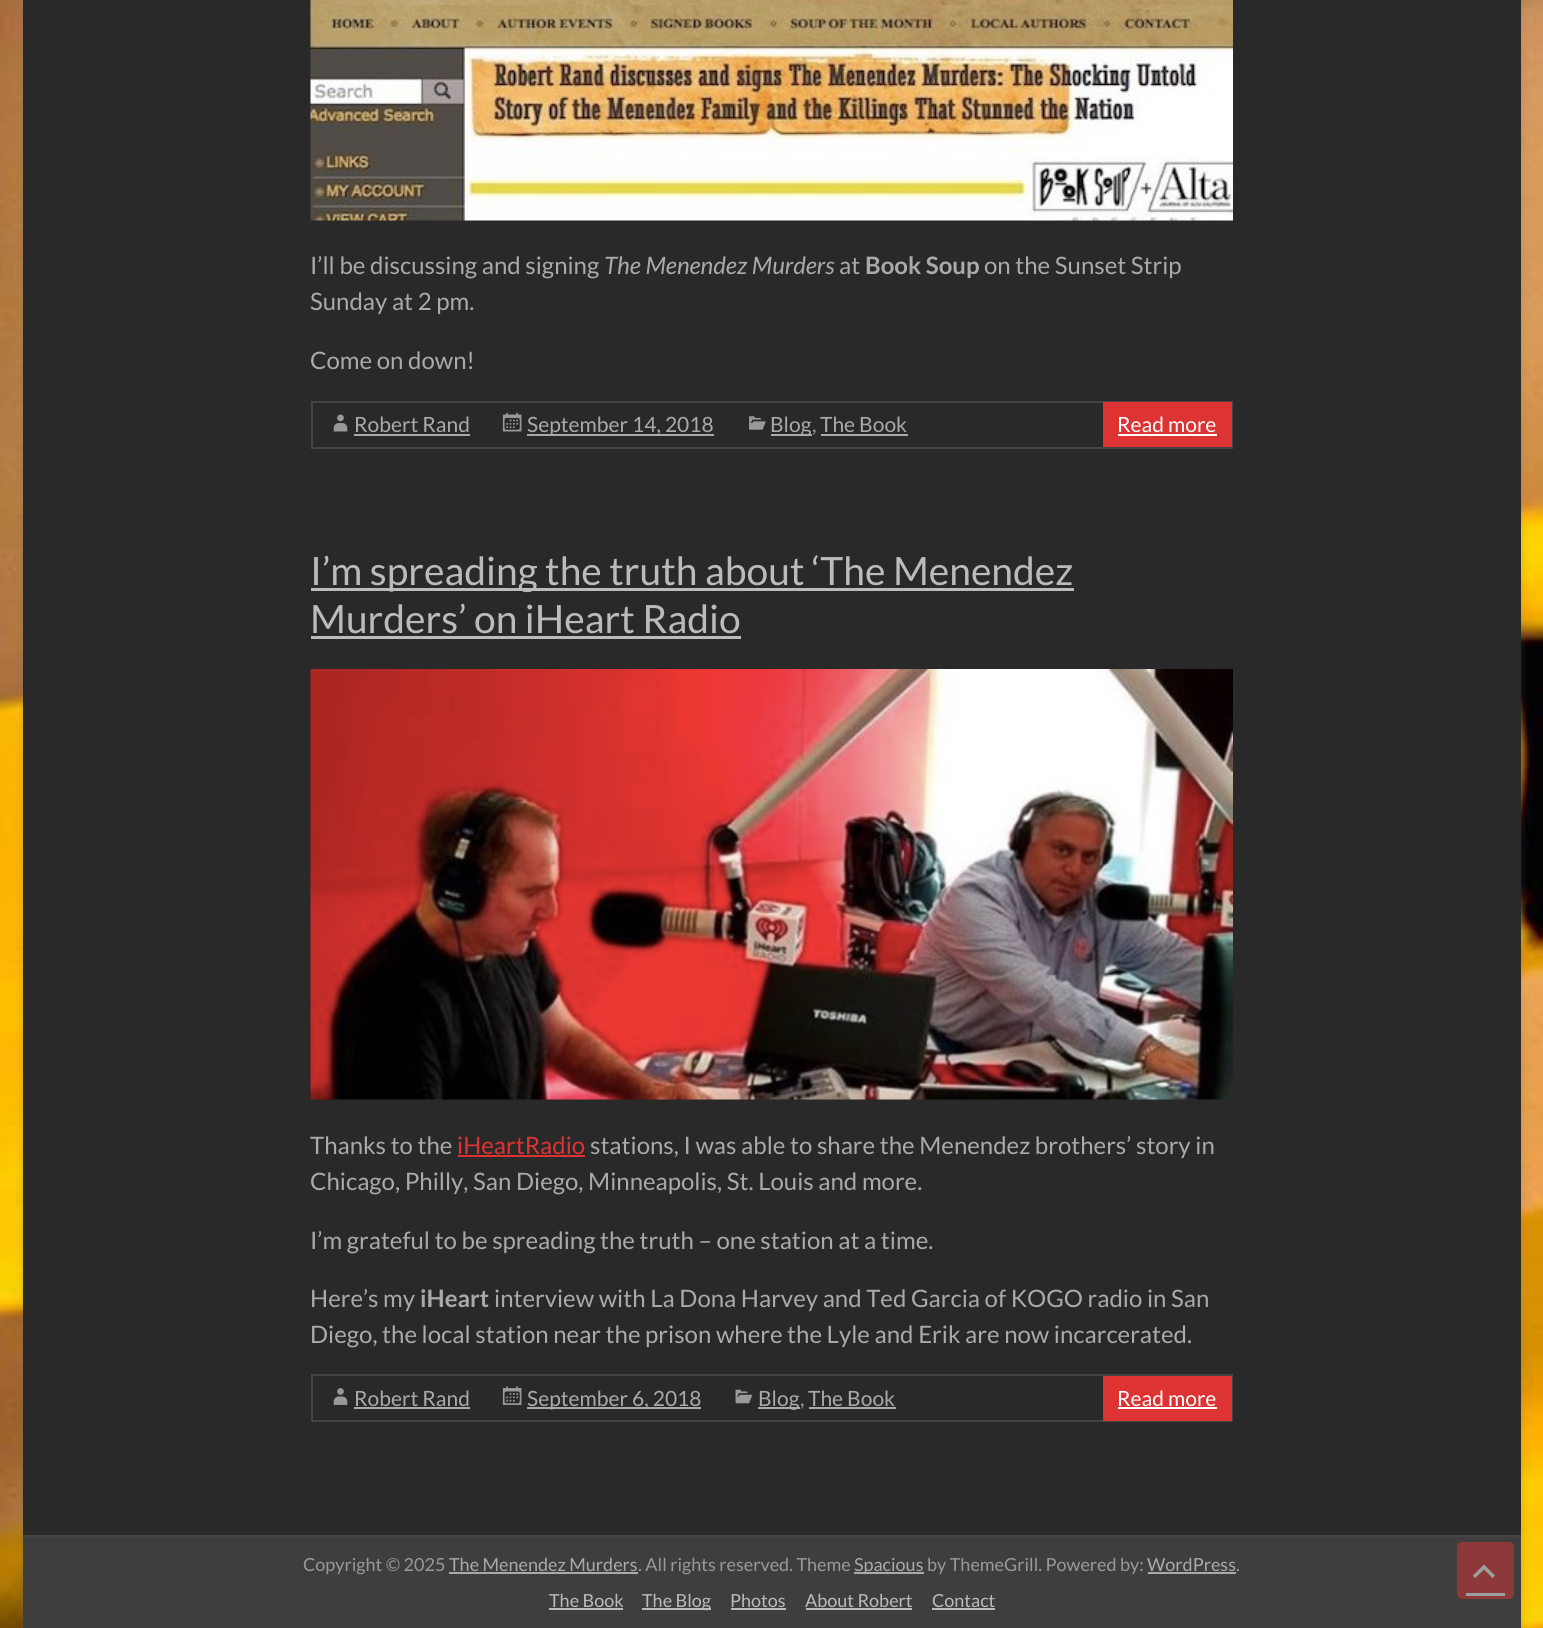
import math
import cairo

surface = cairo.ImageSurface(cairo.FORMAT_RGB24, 1543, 1628)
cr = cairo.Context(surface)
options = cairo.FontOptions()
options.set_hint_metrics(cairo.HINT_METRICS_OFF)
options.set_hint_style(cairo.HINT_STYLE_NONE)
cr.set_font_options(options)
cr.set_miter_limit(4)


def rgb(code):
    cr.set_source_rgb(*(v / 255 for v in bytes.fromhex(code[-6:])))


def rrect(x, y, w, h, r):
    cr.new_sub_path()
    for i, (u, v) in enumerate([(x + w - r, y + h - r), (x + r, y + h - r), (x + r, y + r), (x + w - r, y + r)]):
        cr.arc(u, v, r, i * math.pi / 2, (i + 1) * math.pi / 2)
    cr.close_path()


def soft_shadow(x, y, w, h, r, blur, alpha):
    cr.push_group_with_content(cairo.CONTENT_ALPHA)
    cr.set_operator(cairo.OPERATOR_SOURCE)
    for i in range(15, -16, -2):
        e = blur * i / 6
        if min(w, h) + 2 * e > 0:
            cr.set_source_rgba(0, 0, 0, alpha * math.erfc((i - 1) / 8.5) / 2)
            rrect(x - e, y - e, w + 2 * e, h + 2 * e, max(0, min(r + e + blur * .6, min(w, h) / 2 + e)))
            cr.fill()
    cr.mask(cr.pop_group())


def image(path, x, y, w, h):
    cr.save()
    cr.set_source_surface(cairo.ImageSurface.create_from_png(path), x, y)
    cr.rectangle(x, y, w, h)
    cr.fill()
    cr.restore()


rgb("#ffffff")
cr.paint()
image("img/1.png", 0, 0, 1543, 1628)
rgb("#646464")
soft_shadow(23, -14, 1498, 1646, 0, 4.5, 0.3)
rgb("#292929")
cr.rectangle(23, 0, 1498, 1535)
cr.fill()
image("img/2.png", 310, 0, 923, 221)
cr.rectangle(312, 402, 920, 46)
rgb("#444444")
cr.stroke()
image("img/3.png", 333, 414, 15, 18)
rgb("#aaaaaa")
cr.rectangle(354, 434, 116, 2)
cr.fill()
image("img/4.png", 502, 412, 20, 20)
cr.rectangle(527, 434, 187, 2)
cr.fill()
image("img/5.png", 749, 416, 17, 14)
for x, y, w, h, color in [
    (771, 434, 41, 2, "#aaaaaa"),
    (821, 434, 87, 2, "#aaaaaa"),
    (1103, 402, 129, 45, "#dd3333"),
    (1118, 434, 99, 2, "#ffffff"),
    (311, 588, 763, 3, "#bbbbbb"),
    (311, 636, 430, 3, "#bbbbbb"),
]:
    rgb(color)
    cr.rectangle(x, y, w, h)
    cr.fill()
image("img/6.png", 310, 669, 923, 431)
rgb("#dd3333")
cr.rectangle(458, 1155, 127, 2)
cr.fill()
cr.rectangle(312, 1375, 920, 46)
rgb("#444444")
cr.stroke()
image("img/7.png", 333, 1388, 15, 17)
rgb("#aaaaaa")
cr.rectangle(354, 1407, 116, 2)
cr.fill()
image("img/8.png", 502, 1386, 20, 19)
cr.rectangle(527, 1407, 174, 2)
cr.fill()
image("img/9.png", 735, 1389, 18, 15)
for x, y, w, h, color in [
    (758, 1407, 42, 2, "#aaaaaa"),
    (809, 1407, 87, 2, "#aaaaaa"),
    (1103, 1376, 129, 45, "#dd3333"),
    (1118, 1407, 99, 2, "#ffffff"),
    (23, 1537, 1498, 91, "#3e3e3e"),
    (23, 1535, 1498, 2, "#444444"),
    (449, 1572, 189, 2, "#aaaaaa"),
    (854, 1572, 70, 2, "#aaaaaa"),
    (1148, 1572, 88, 2, "#aaaaaa"),
    (549, 1608, 74, 2, "#bbbbbb"),
    (642, 1608, 69, 2, "#bbbbbb"),
    (731, 1608, 55, 2, "#bbbbbb"),
    (806, 1608, 106, 2, "#bbbbbb"),
    (932, 1608, 63, 2, "#bbbbbb"),
]:
    rgb(color)
    cr.rectangle(x, y, w, h)
    cr.fill()
rgb("#8e3939")
rrect(1457, 1542, 57, 57, 5)
cr.fill()
rgb("#9f9f9f")
cr.new_path()
cr.move_to(1492.5, 1578)
cr.line_to(1484, 1569.5)
cr.line_to(1475, 1578)
cr.line_to(1473, 1575.5)
cr.line_to(1484, 1564.5)
cr.line_to(1495, 1575.5)
cr.close_path()
cr.fill()
cr.rectangle(1466, 1593, 39, 3)
cr.fill()
cr.select_font_face("Lato")
cr.set_font_size(24)
rgb("#aaaaaa")
cr.move_to(310, 274)
cr.show_text("I’ll be discussing and signing")
cr.select_font_face("Lato", cairo.FONT_SLANT_ITALIC)
cr.move_to(604, 274)
cr.show_text("The Menendez Murders")
cr.select_font_face("Lato")
cr.move_to(839, 274)
cr.show_text("at")
cr.select_font_face("Lato", cairo.FONT_SLANT_NORMAL, cairo.FONT_WEIGHT_BOLD)
cr.move_to(865, 274)
cr.show_text("Book Soup")
cr.select_font_face("Lato")
for x, y, s in [
    (984, 274, "on the Sunset Strip"),
    (310, 310, "Sunday at 2 pm."),
    (310, 369, "Come on down!"),
]:
    cr.move_to(x, y)
    cr.show_text(s)
cr.set_font_size(21)
for x, y, s in [
    (354, 432, "Robert Rand"),
    (527, 432, "September 14, 2018"),
    (770, 432, "Blog"),
]:
    cr.move_to(x, y)
    cr.show_text(s)
rgb("#999999")
cr.move_to(812, 432)
cr.show_text(",")
rgb("#aaaaaa")
cr.move_to(820, 432)
cr.show_text("The Book")
rgb("#ffffff")
cr.move_to(1117, 432)
cr.show_text("Read more")
cr.set_font_size(39)
rgb("#bbbbbb")
cr.move_to(310, 585)
cr.show_text("I’m spreading the truth about ‘The Menendez")
cr.move_to(310, 633)
cr.show_text("Murders’ on iHeart Radio")
cr.set_font_size(24)
rgb("#aaaaaa")
cr.move_to(310, 1154)
cr.show_text("Thanks to the")
rgb("#dd3333")
cr.move_to(457, 1154)
cr.show_text("iHeartRadio")
rgb("#aaaaaa")
for x, y, s in [
    (590, 1154, "stations, I was able to share the Menendez brothers’ story in"),
    (310, 1190, "Chicago, Philly, San Diego, Minneapolis, St. Louis and more."),
    (310, 1249, "I’m grateful to be spreading the truth – one station at a time."),
    (310, 1307, "Here’s my"),
]:
    cr.move_to(x, y)
    cr.show_text(s)
cr.select_font_face("Lato", cairo.FONT_SLANT_NORMAL, cairo.FONT_WEIGHT_BOLD)
cr.move_to(420, 1307)
cr.show_text("iHeart")
cr.select_font_face("Lato")
cr.move_to(494, 1307)
cr.show_text("interview with La Dona Harvey and Ted Garcia of KOGO radio in San")
cr.move_to(310, 1343)
cr.show_text("Diego, the local station near the prison where the Lyle and Erik are now incarcerated.")
cr.set_font_size(21)
for x, y, s in [
    (354, 1406, "Robert Rand"),
    (527, 1406, "September 6, 2018"),
    (758, 1406, "Blog"),
]:
    cr.move_to(x, y)
    cr.show_text(s)
rgb("#999999")
cr.move_to(800, 1406)
cr.show_text(",")
rgb("#aaaaaa")
cr.move_to(808, 1406)
cr.show_text("The Book")
rgb("#ffffff")
cr.move_to(1117, 1406)
cr.show_text("Read more")
cr.set_font_size(18)
rgb("#999999")
cr.move_to(303, 1571)
cr.show_text("Copyright © 2025")
rgb("#aaaaaa")
cr.move_to(449, 1571)
cr.show_text("The Menendez Murders")
rgb("#999999")
cr.move_to(638, 1571)
cr.show_text(". All rights reserved. Theme")
rgb("#aaaaaa")
cr.move_to(854, 1571)
cr.show_text("Spacious")
rgb("#999999")
cr.move_to(927, 1571)
cr.show_text("by ThemeGrill. Powered by:")
rgb("#aaaaaa")
cr.move_to(1147, 1571)
cr.show_text("WordPress")
rgb("#999999")
cr.move_to(1236, 1571)
cr.show_text(".")
rgb("#bbbbbb")
for x, y, s in [
    (549, 1607, "The Book"),
    (642, 1607, "The Blog"),
    (730, 1607, "Photos"),
    (805, 1607, "About Robert"),
    (932, 1607, "Contact"),
]:
    cr.move_to(x, y)
    cr.show_text(s)
surface.write_to_png("page.png")
